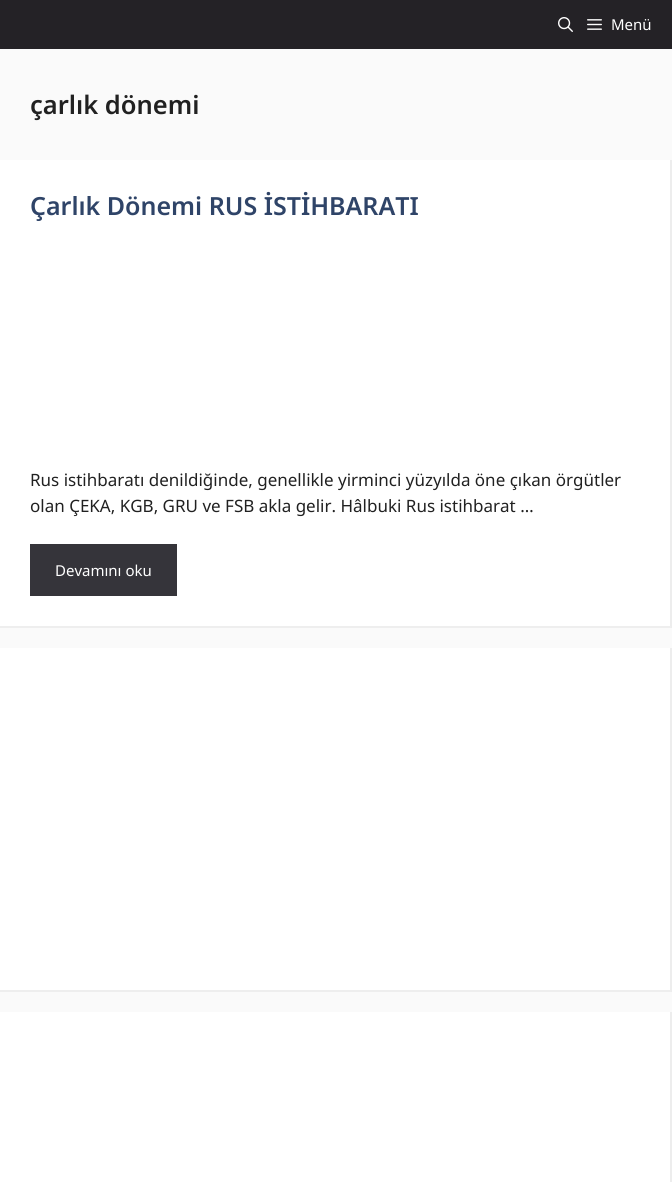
import math
import cairo

surface = cairo.ImageSurface(cairo.FORMAT_RGB24, 672, 1182)
cr = cairo.Context(surface)
options = cairo.FontOptions()
options.set_hint_metrics(cairo.HINT_METRICS_OFF)
options.set_hint_style(cairo.HINT_STYLE_NONE)
cr.set_font_options(options)
cr.set_miter_limit(4)


def rgb(code):
    cr.set_source_rgb(*(v / 255 for v in bytes.fromhex(code[-6:])))


def image(path, x, y, w, h):
    cr.save()
    cr.set_source_surface(cairo.ImageSurface.create_from_png(path), x, y)
    cr.rectangle(x, y, w, h)
    cr.fill()
    cr.restore()


rgb("#fafafa")
cr.paint()
rgb("#242226")
cr.rectangle(0, 0, 672, 49)
cr.fill()
image("img/1.png", 558, 17, 15, 15)
image("img/2.png", 587, 19, 15, 11)
rgb("#ffffff")
cr.rectangle(0, 160, 672, 468)
cr.fill()
rgb("#ededed")
cr.new_path()
cr.move_to(672, 160)
cr.line_to(672, 628)
cr.line_to(670, 626)
cr.line_to(670, 160)
cr.close_path()
cr.fill()
cr.set_source_rgba(0, 0, 0, 0.07)
cr.new_path()
cr.move_to(672, 628)
cr.line_to(0, 628)
cr.line_to(0, 626)
cr.line_to(670, 626)
cr.close_path()
cr.fill()
rgb("#35343a")
cr.rectangle(30, 544, 147, 52)
cr.fill()
rgb("#ffffff")
cr.rectangle(0, 648, 672, 344)
cr.fill()
rgb("#ededed")
cr.new_path()
cr.move_to(672, 648)
cr.line_to(672, 992)
cr.line_to(670, 990)
cr.line_to(670, 648)
cr.close_path()
cr.fill()
cr.set_source_rgba(0, 0, 0, 0.07)
cr.new_path()
cr.move_to(672, 992)
cr.line_to(0, 992)
cr.line_to(0, 990)
cr.line_to(670, 990)
cr.close_path()
cr.fill()
rgb("#ffffff")
cr.rectangle(0, 1012, 670, 170)
cr.fill()
rgb("#ededed")
cr.new_path()
cr.move_to(672, 1012)
cr.line_to(672, 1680)
cr.line_to(670, 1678)
cr.line_to(670, 1012)
cr.close_path()
cr.fill()
cr.select_font_face("Noto Sans")
cr.set_font_size(15)
rgb("#ffffff")
cr.move_to(611, 30)
cr.show_text("Menü")
cr.select_font_face("Noto Sans SemiBold")
cr.set_font_size(25.5)
rgb("#212121")
cr.move_to(30, 114)
cr.show_text("çarlık dönemi")
cr.set_font_size(25)
rgb("#2f4468")
cr.move_to(30, 215)
cr.show_text("Çarlık Dönemi RUS İSTİHBARATI")
cr.select_font_face("Noto Sans")
cr.set_font_size(17)
rgb("#212121")
cr.move_to(30, 486)
cr.show_text("Rus istihbaratı denildiğinde, genellikle yirminci yüzyılda öne çıkan örgütler")
cr.move_to(30, 512)
cr.show_text("olan ÇEKA, KGB, GRU ve FSB akla gelir. Hâlbuki Rus istihbarat …")
cr.set_font_size(15)
rgb("#ffffff")
cr.move_to(55, 576)
cr.show_text("Devamını oku")
surface.write_to_png("page.png")
